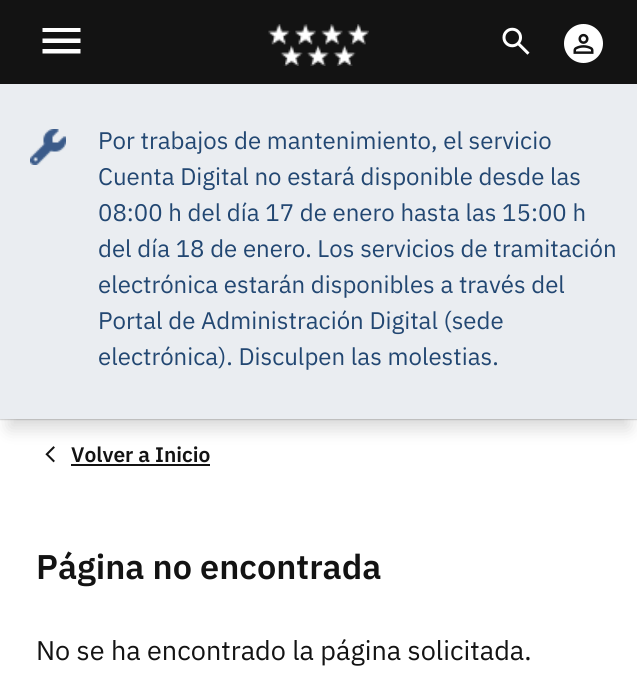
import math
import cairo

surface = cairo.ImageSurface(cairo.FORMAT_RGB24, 637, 697)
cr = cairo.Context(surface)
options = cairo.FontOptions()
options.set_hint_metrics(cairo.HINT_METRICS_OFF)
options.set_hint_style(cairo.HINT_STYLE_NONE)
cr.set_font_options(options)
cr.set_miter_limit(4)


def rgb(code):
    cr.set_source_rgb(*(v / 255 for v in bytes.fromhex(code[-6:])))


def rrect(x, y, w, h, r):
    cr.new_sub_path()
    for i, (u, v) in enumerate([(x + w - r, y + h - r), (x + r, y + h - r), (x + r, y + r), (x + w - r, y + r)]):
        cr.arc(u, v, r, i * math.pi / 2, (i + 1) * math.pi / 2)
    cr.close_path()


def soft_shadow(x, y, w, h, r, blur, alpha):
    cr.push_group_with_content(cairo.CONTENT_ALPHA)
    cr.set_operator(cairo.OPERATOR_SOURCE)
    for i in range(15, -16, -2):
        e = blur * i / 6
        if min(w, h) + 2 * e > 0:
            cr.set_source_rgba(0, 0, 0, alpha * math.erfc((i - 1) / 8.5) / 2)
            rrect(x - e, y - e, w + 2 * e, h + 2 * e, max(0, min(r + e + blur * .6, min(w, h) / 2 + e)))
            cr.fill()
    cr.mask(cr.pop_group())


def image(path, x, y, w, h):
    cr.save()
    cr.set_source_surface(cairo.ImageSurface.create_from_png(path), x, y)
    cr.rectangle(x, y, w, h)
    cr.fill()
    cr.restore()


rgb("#ffffff")
cr.paint()
rgb("#000000")
soft_shadow(0, 0, 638, 419, 0, 1, 0.4)
image("img/5.png", 45, 446, 10, 17)
soft_shadow(9, 27, 620, 401, 0, 9, 0.16)
rgb("#131313")
cr.rectangle(0, 0, 637, 84)
cr.fill()
rgb("#ffffff")
cr.new_path()
cr.move_to(42.5, 53.5)
cr.line_to(42.5, 49)
cr.line_to(80.5, 49)
cr.line_to(80.5, 53.5)
cr.close_path()
cr.move_to(42.5, 43)
cr.line_to(42.5, 38.5)
cr.line_to(80.5, 38.5)
cr.line_to(80.5, 43)
cr.close_path()
cr.move_to(42.5, 32)
cr.line_to(42.5, 28)
cr.line_to(80.5, 28)
cr.line_to(80.5, 32)
cr.close_path()
cr.fill()
image("img/1.png", 268, 24, 101, 42)
image("img/2.png", 502, 27, 28, 28)
cr.arc(583.5, 43.5, 19.5, 0, 2 * math.pi)
cr.fill()
image("img/3.png", 573, 33, 21, 21)
rgb("#eaedf1")
cr.rectangle(0, 84, 637, 335)
cr.fill()
image("img/4.png", 30, 129, 36, 36)
rgb("#131313")
cr.rectangle(71, 464, 139, 2)
cr.fill()
cr.select_font_face("IBM Plex Sans")
cr.set_font_size(24)
rgb("#224772")
for x, y, s in [
    (98, 149, "Por trabajos de mantenimiento, el servicio"),
    (98, 185, "Cuenta Digital no estará disponible desde las"),
    (98, 221, "08:00 h del día 17 de enero hasta las 15:00 h"),
    (98, 257, "del día 18 de enero. Los servicios de tramitación"),
    (98, 293, "electrónica estarán disponibles a través del"),
    (98, 329, "Portal de Administración Digital (sede"),
    (98, 365, "electrónica). Disculpen las molestias."),
]:
    cr.move_to(x, y)
    cr.show_text(s)
cr.select_font_face("IBM Plex Sans SemiBold")
cr.set_font_size(21)
rgb("#131313")
cr.move_to(71, 462)
cr.show_text("Volver a Inicio")
cr.set_font_size(34.25)
cr.move_to(36, 579)
cr.show_text("Página no encontrada")
cr.select_font_face("IBM Plex Sans")
cr.set_font_size(27)
cr.move_to(36, 660)
cr.show_text("No se ha encontrado la página solicitada.")
surface.write_to_png("page.png")
